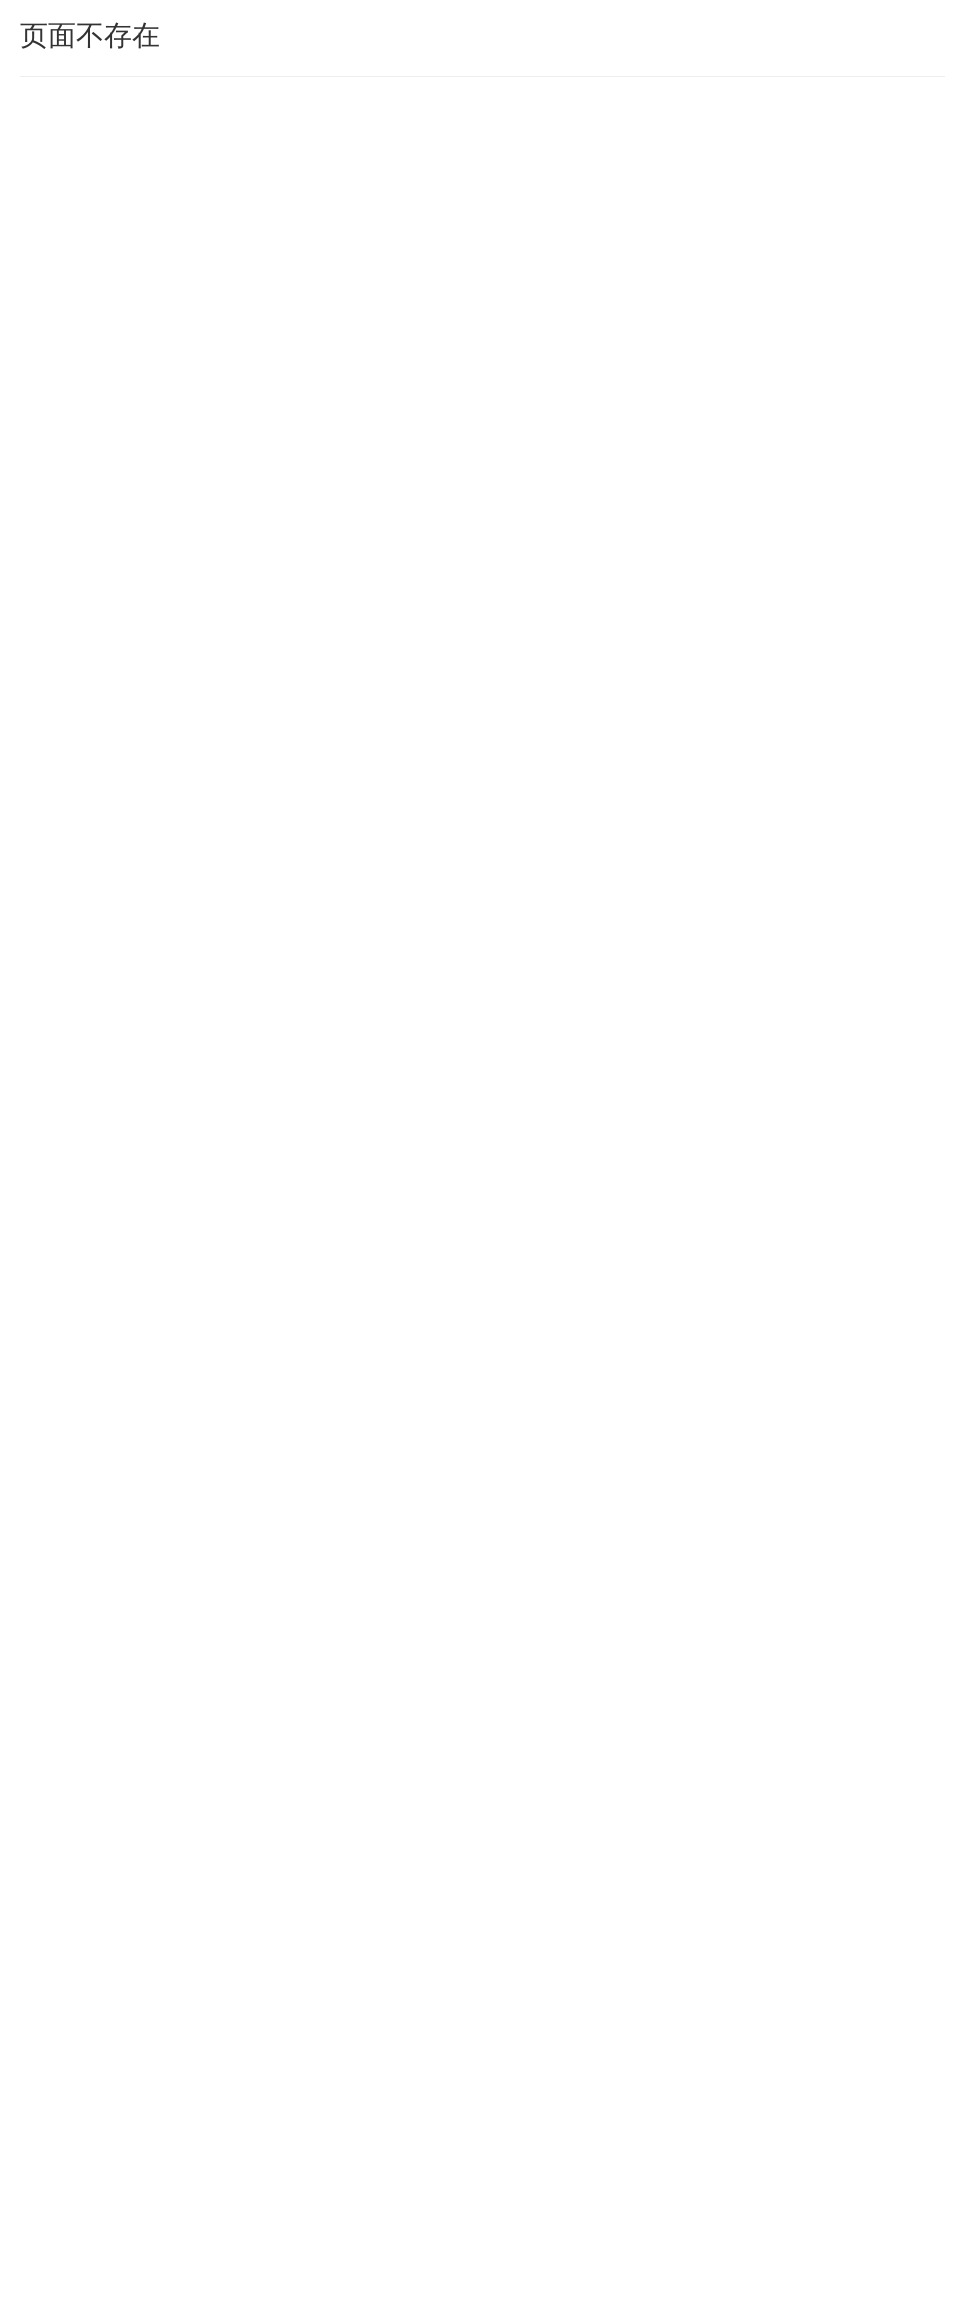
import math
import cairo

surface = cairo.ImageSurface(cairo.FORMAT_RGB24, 965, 2321)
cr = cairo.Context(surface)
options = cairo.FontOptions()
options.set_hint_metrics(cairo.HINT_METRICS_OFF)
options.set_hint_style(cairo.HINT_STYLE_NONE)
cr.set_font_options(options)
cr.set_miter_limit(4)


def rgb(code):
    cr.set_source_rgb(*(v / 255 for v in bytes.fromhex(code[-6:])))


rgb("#ffffff")
cr.paint()
rgb("#eeeeee")
cr.rectangle(20, 76, 925, 1)
cr.fill()
cr.select_font_face("WenQuanYi Zen Hei Medium")
cr.set_font_size(28)
rgb("#333333")
cr.move_to(20, 45)
cr.show_text("页面不存在")
surface.write_to_png("page.png")
